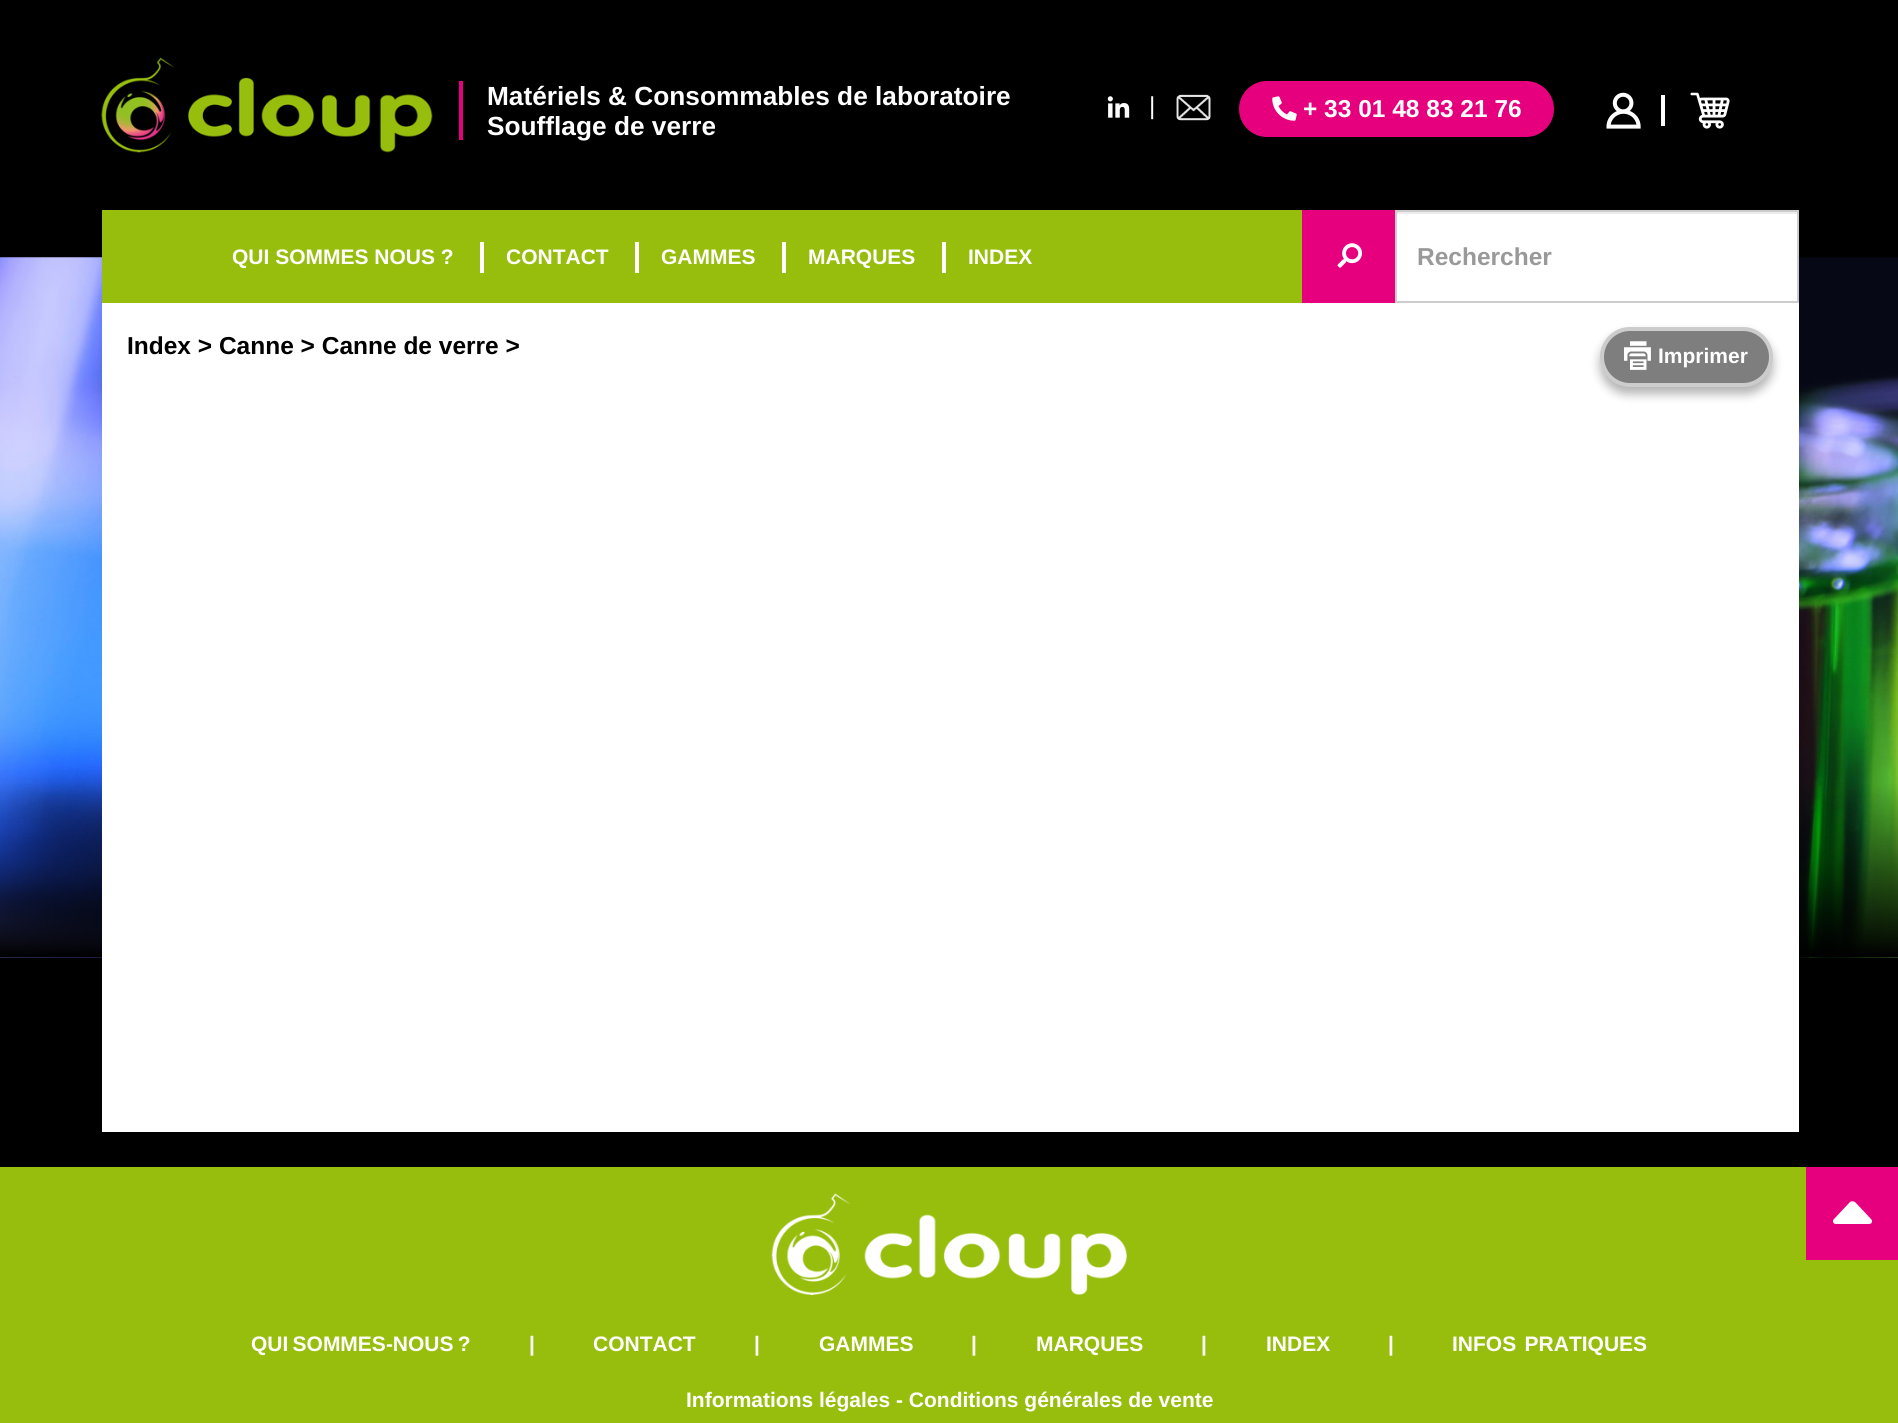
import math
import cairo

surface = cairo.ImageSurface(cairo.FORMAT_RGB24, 1898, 1423)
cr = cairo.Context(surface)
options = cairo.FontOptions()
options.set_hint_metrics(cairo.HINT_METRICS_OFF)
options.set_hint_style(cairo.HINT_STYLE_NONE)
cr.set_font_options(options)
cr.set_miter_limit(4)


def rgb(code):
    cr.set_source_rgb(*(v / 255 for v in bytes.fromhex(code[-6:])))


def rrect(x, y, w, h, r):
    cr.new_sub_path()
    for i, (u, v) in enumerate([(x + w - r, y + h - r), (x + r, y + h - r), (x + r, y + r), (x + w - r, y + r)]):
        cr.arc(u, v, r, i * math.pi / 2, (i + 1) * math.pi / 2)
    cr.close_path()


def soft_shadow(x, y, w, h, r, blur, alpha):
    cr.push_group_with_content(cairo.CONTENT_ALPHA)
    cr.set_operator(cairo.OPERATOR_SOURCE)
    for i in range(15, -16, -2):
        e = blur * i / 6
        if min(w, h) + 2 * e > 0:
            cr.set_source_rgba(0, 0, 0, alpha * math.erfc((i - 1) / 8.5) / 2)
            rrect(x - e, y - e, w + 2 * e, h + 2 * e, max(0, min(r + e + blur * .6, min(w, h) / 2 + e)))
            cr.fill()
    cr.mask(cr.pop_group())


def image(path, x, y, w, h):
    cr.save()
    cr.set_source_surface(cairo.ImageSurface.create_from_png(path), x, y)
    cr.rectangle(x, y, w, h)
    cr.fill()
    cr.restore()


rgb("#000000")
cr.paint()
image("img/1.png", 101, 57, 332, 96)
rgb("#e6007e")
cr.rectangle(459, 81, 4, 59)
cr.fill()
image("img/2.png", 1107, 96, 23, 22)
image("img/3.png", 1176, 94, 35, 27)
rrect(1239, 81, 315, 56, 28)
cr.fill()
image("img/4.png", 1272, 96, 25, 25)
image("img/5.png", 1606, 92, 35, 37)
rgb("#ffffff")
cr.rectangle(1661, 95, 4, 31)
cr.fill()
image("img/6.png", 1690, 92, 40, 37)
image("img/8.png", 0, 257, 1898, 701)
for x, y, w, h, color in [
    (102, 210, 1200, 93, "#98be0d"),
    (480, 242, 4, 31, "#ffffff"),
    (635, 242, 4, 31, "#ffffff"),
    (782, 242, 4, 31, "#ffffff"),
    (942, 242, 4, 31, "#ffffff"),
    (1302, 210, 93, 93, "#e6007e"),
]:
    rgb(color)
    cr.rectangle(x, y, w, h)
    cr.fill()
image("img/7.png", 1337, 243, 25, 25)
rgb("#ffffff")
cr.rectangle(1397, 214, 400, 87)
cr.fill()
rgb("#ececec")
cr.rectangle(1397, 212, 400, 2)
cr.fill()
cr.rectangle(1396, 211, 402, 91)
rgb("#cccccc")
cr.stroke()
rgb("#ffffff")
cr.rectangle(102, 303, 1697, 829)
cr.fill()
rgb("#000000")
soft_shadow(1600, 334, 173, 60, 30, 5, 0.3)
rgb("#7e7e7e")
rrect(1602, 329, 169, 56, 28)
cr.fill_preserve()
rgb("#cccccc")
cr.set_line_width(4)
cr.stroke()
image("img/9.png", 1624, 341, 27, 29)
rgb("#98be0d")
cr.rectangle(0, 1167, 1898, 256)
cr.fill()
rgb("#e6007e")
cr.rectangle(1806, 1167, 92, 93)
cr.fill()
rgb("#ffffff")
cr.new_path()
cr.move_to(1869, 1224)
cr.line_to(1836, 1224)
cr.curve_to(1833, 1224, 1832, 1221, 1834, 1219)
cr.line_to(1850, 1202)
cr.curve_to(1851, 1201, 1853, 1201, 1855, 1202)
cr.line_to(1871, 1219)
cr.curve_to(1873, 1221, 1872, 1224, 1869, 1224)
cr.close_path()
cr.fill()
image("img/10.png", 771, 1193, 356, 102)
cr.select_font_face("Liberation Sans", cairo.FONT_SLANT_NORMAL, cairo.FONT_WEIGHT_BOLD)
cr.set_font_size(26.25)
cr.move_to(487, 105)
cr.show_text("Matériels & Consommables de laboratoire")
cr.move_to(487, 135)
cr.show_text("Soufflage de verre")
cr.select_font_face("Liberation Sans")
cr.set_font_size(24.5)
cr.move_to(1149, 114)
cr.show_text("|")
cr.select_font_face("Liberation Sans", cairo.FONT_SLANT_NORMAL, cairo.FONT_WEIGHT_BOLD)
cr.move_to(1303, 117)
cr.show_text("+ 33 01 48 83 21 76")
cr.set_font_size(21)
for x, y, s in [
    (232, 264, "QUI SOMMES NOUS ?"),
    (506, 264, "CONTACT"),
    (661, 264, "GAMMES"),
    (808, 264, "MARQUES"),
    (968, 264, "INDEX"),
]:
    cr.move_to(x, y)
    cr.show_text(s)
cr.set_font_size(24.5)
rgb("#999999")
cr.move_to(1417, 265)
cr.show_text("Rechercher")
rgb("#000000")
cr.move_to(127, 354)
cr.show_text("Index > Canne > Canne de verre >")
cr.set_font_size(21)
rgb("#ffffff")
for x, y, s in [
    (1658, 363, "Imprimer"),
    (251, 1351, "QUI SOMMES-NOUS ?"),
    (529, 1351, "|"),
    (593, 1351, "CONTACT"),
    (754, 1351, "|"),
    (819, 1351, "GAMMES"),
    (971, 1351, "|"),
    (1036, 1351, "MARQUES"),
    (1201, 1351, "|"),
    (1266, 1351, "INDEX"),
    (1388, 1351, "|"),
    (1452, 1351, "INFOS  PRATIQUES"),
    (686, 1407, "Informations légales"),
    (896, 1407, "- Conditions générales de vente"),
]:
    cr.move_to(x, y)
    cr.show_text(s)
surface.write_to_png("page.png")
